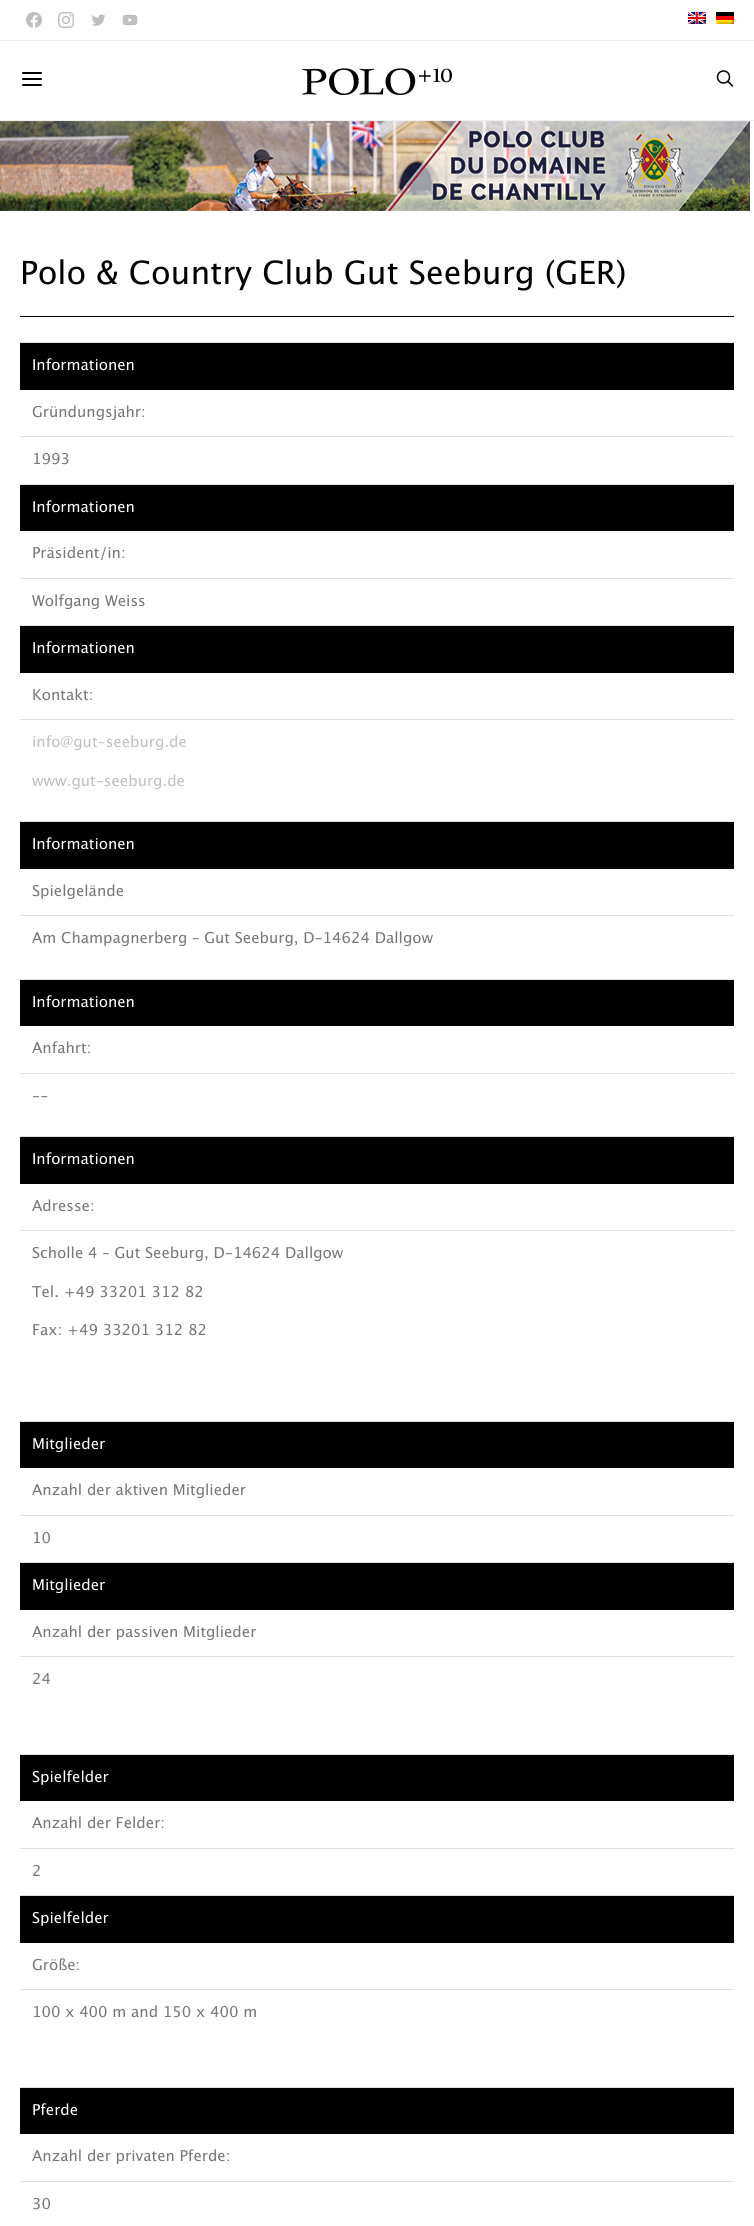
import math
import cairo

surface = cairo.ImageSurface(cairo.FORMAT_RGB24, 754, 2226)
cr = cairo.Context(surface)
options = cairo.FontOptions()
options.set_hint_metrics(cairo.HINT_METRICS_OFF)
options.set_hint_style(cairo.HINT_STYLE_NONE)
cr.set_font_options(options)
cr.set_miter_limit(4)


def rgb(code):
    cr.set_source_rgb(*(v / 255 for v in bytes.fromhex(code[-6:])))


def image(path, x, y, w, h):
    cr.save()
    cr.set_source_surface(cairo.ImageSurface.create_from_png(path), x, y)
    cr.rectangle(x, y, w, h)
    cr.fill()
    cr.restore()


rgb("#ffffff")
cr.paint()
rgb("#eeeeee")
cr.rectangle(0, 40, 754, 1)
cr.fill()
image("img/1.png", 26, 12, 16, 16)
image("img/2.png", 58, 12, 16, 16)
image("img/3.png", 91, 14, 14, 12)
image("img/4.png", 122, 14, 16, 12)
image("img/5.png", 688, 12, 18, 12)
image("img/6.png", 716, 12, 18, 12)
cr.rectangle(0, 120, 754, 1)
cr.fill()
image("img/7.png", 22, 72, 20, 14)
image("img/8.png", 302, 68, 150, 28)
image("img/9.png", 716, 70, 18, 17)
image("img/10.png", 0, 121, 750, 90)
for x, y, w, h, color in [
    (20, 316, 714, 1, "#000000"),
    (20, 342, 714, 1, "#dee2e6"),
    (20, 343, 714, 47, "#000000"),
    (20, 436, 714, 1, "#dee2e6"),
    (20, 484, 714, 1, "#dee2e6"),
    (20, 485, 714, 46, "#000000"),
    (20, 578, 714, 1, "#dee2e6"),
    (20, 625, 714, 1, "#dee2e6"),
    (20, 626, 714, 47, "#000000"),
    (20, 719, 714, 1, "#dee2e6"),
    (20, 821, 714, 1, "#dee2e6"),
    (20, 822, 714, 47, "#000000"),
    (20, 915, 714, 1, "#dee2e6"),
    (20, 979, 714, 1, "#dee2e6"),
    (20, 980, 714, 46, "#000000"),
    (20, 1073, 714, 1, "#dee2e6"),
    (20, 1136, 714, 1, "#dee2e6"),
    (20, 1137, 714, 47, "#000000"),
    (20, 1230, 714, 1, "#dee2e6"),
    (20, 1421, 714, 1, "#dee2e6"),
    (20, 1422, 714, 46, "#000000"),
    (20, 1515, 714, 1, "#dee2e6"),
    (20, 1562, 714, 1, "#dee2e6"),
    (20, 1563, 714, 47, "#000000"),
    (20, 1656, 714, 1, "#dee2e6"),
    (20, 1754, 714, 1, "#dee2e6"),
    (20, 1755, 714, 46, "#000000"),
    (20, 1848, 714, 1, "#dee2e6"),
    (20, 1895, 714, 1, "#dee2e6"),
    (20, 1896, 714, 47, "#000000"),
    (20, 1989, 714, 1, "#dee2e6"),
    (20, 2087, 714, 1, "#dee2e6"),
    (20, 2088, 714, 46, "#000000"),
    (20, 2181, 714, 1, "#dee2e6"),
]:
    rgb(color)
    cr.rectangle(x, y, w, h)
    cr.fill()
cr.select_font_face("Lucida Grande")
cr.set_font_size(32)
rgb("#000000")
cr.move_to(20, 284)
cr.show_text("Polo & Country Club Gut Seeburg (GER)")
cr.set_font_size(15)
rgb("#ffffff")
cr.move_to(32, 370)
cr.show_text("Informationen")
rgb("#777777")
cr.move_to(32, 417)
cr.show_text("Gründungsjahr:")
cr.move_to(32, 464)
cr.show_text("1993")
rgb("#ffffff")
cr.move_to(32, 512)
cr.show_text("Informationen")
rgb("#777777")
cr.move_to(32, 558)
cr.show_text("Präsident/in:")
cr.move_to(32, 606)
cr.show_text("Wolfgang Weiss")
rgb("#ffffff")
cr.move_to(32, 653)
cr.show_text("Informationen")
rgb("#777777")
cr.move_to(32, 700)
cr.show_text("Kontakt:")
rgb("#bfbfbf")
cr.move_to(32, 747)
cr.show_text("info@gut-seeburg.de")
cr.move_to(32, 786)
cr.show_text("www.gut-seeburg.de")
rgb("#ffffff")
cr.move_to(32, 849)
cr.show_text("Informationen")
rgb("#777777")
cr.move_to(32, 896)
cr.show_text("Spielgelände")
cr.move_to(32, 943)
cr.show_text("Am Champagnerberg – Gut Seeburg, D-14624 Dallgow")
rgb("#ffffff")
cr.move_to(32, 1007)
cr.show_text("Informationen")
rgb("#777777")
cr.move_to(32, 1053)
cr.show_text("Anfahrt:")
cr.move_to(32, 1101)
cr.show_text("--")
rgb("#ffffff")
cr.move_to(32, 1164)
cr.show_text("Informationen")
rgb("#777777")
for x, y, s in [
    (32, 1211, "Adresse:"),
    (32, 1258, "Scholle 4 – Gut Seeburg, D-14624 Dallgow"),
    (32, 1297, "Tel. +49 33201 312 82"),
    (32, 1335, "Fax: +49 33201 312 82"),
]:
    cr.move_to(x, y)
    cr.show_text(s)
rgb("#ffffff")
cr.move_to(32, 1449)
cr.show_text("Mitglieder")
rgb("#777777")
cr.move_to(32, 1495)
cr.show_text("Anzahl der aktiven Mitglieder")
cr.move_to(32, 1543)
cr.show_text("10")
rgb("#ffffff")
cr.move_to(32, 1590)
cr.show_text("Mitglieder")
rgb("#777777")
cr.move_to(32, 1637)
cr.show_text("Anzahl der passiven Mitglieder")
cr.move_to(32, 1684)
cr.show_text("24")
rgb("#ffffff")
cr.move_to(32, 1782)
cr.show_text("Spielfelder")
rgb("#777777")
cr.move_to(32, 1828)
cr.show_text("Anzahl der Felder:")
cr.move_to(32, 1876)
cr.show_text("2")
rgb("#ffffff")
cr.move_to(32, 1923)
cr.show_text("Spielfelder")
rgb("#777777")
cr.move_to(32, 1970)
cr.show_text("Größe:")
cr.move_to(32, 2017)
cr.show_text("100 x 400 m and 150 x 400 m")
rgb("#ffffff")
cr.move_to(32, 2115)
cr.show_text("Pferde")
rgb("#777777")
cr.move_to(32, 2161)
cr.show_text("Anzahl der privaten Pferde:")
cr.move_to(32, 2209)
cr.show_text("30")
surface.write_to_png("page.png")
